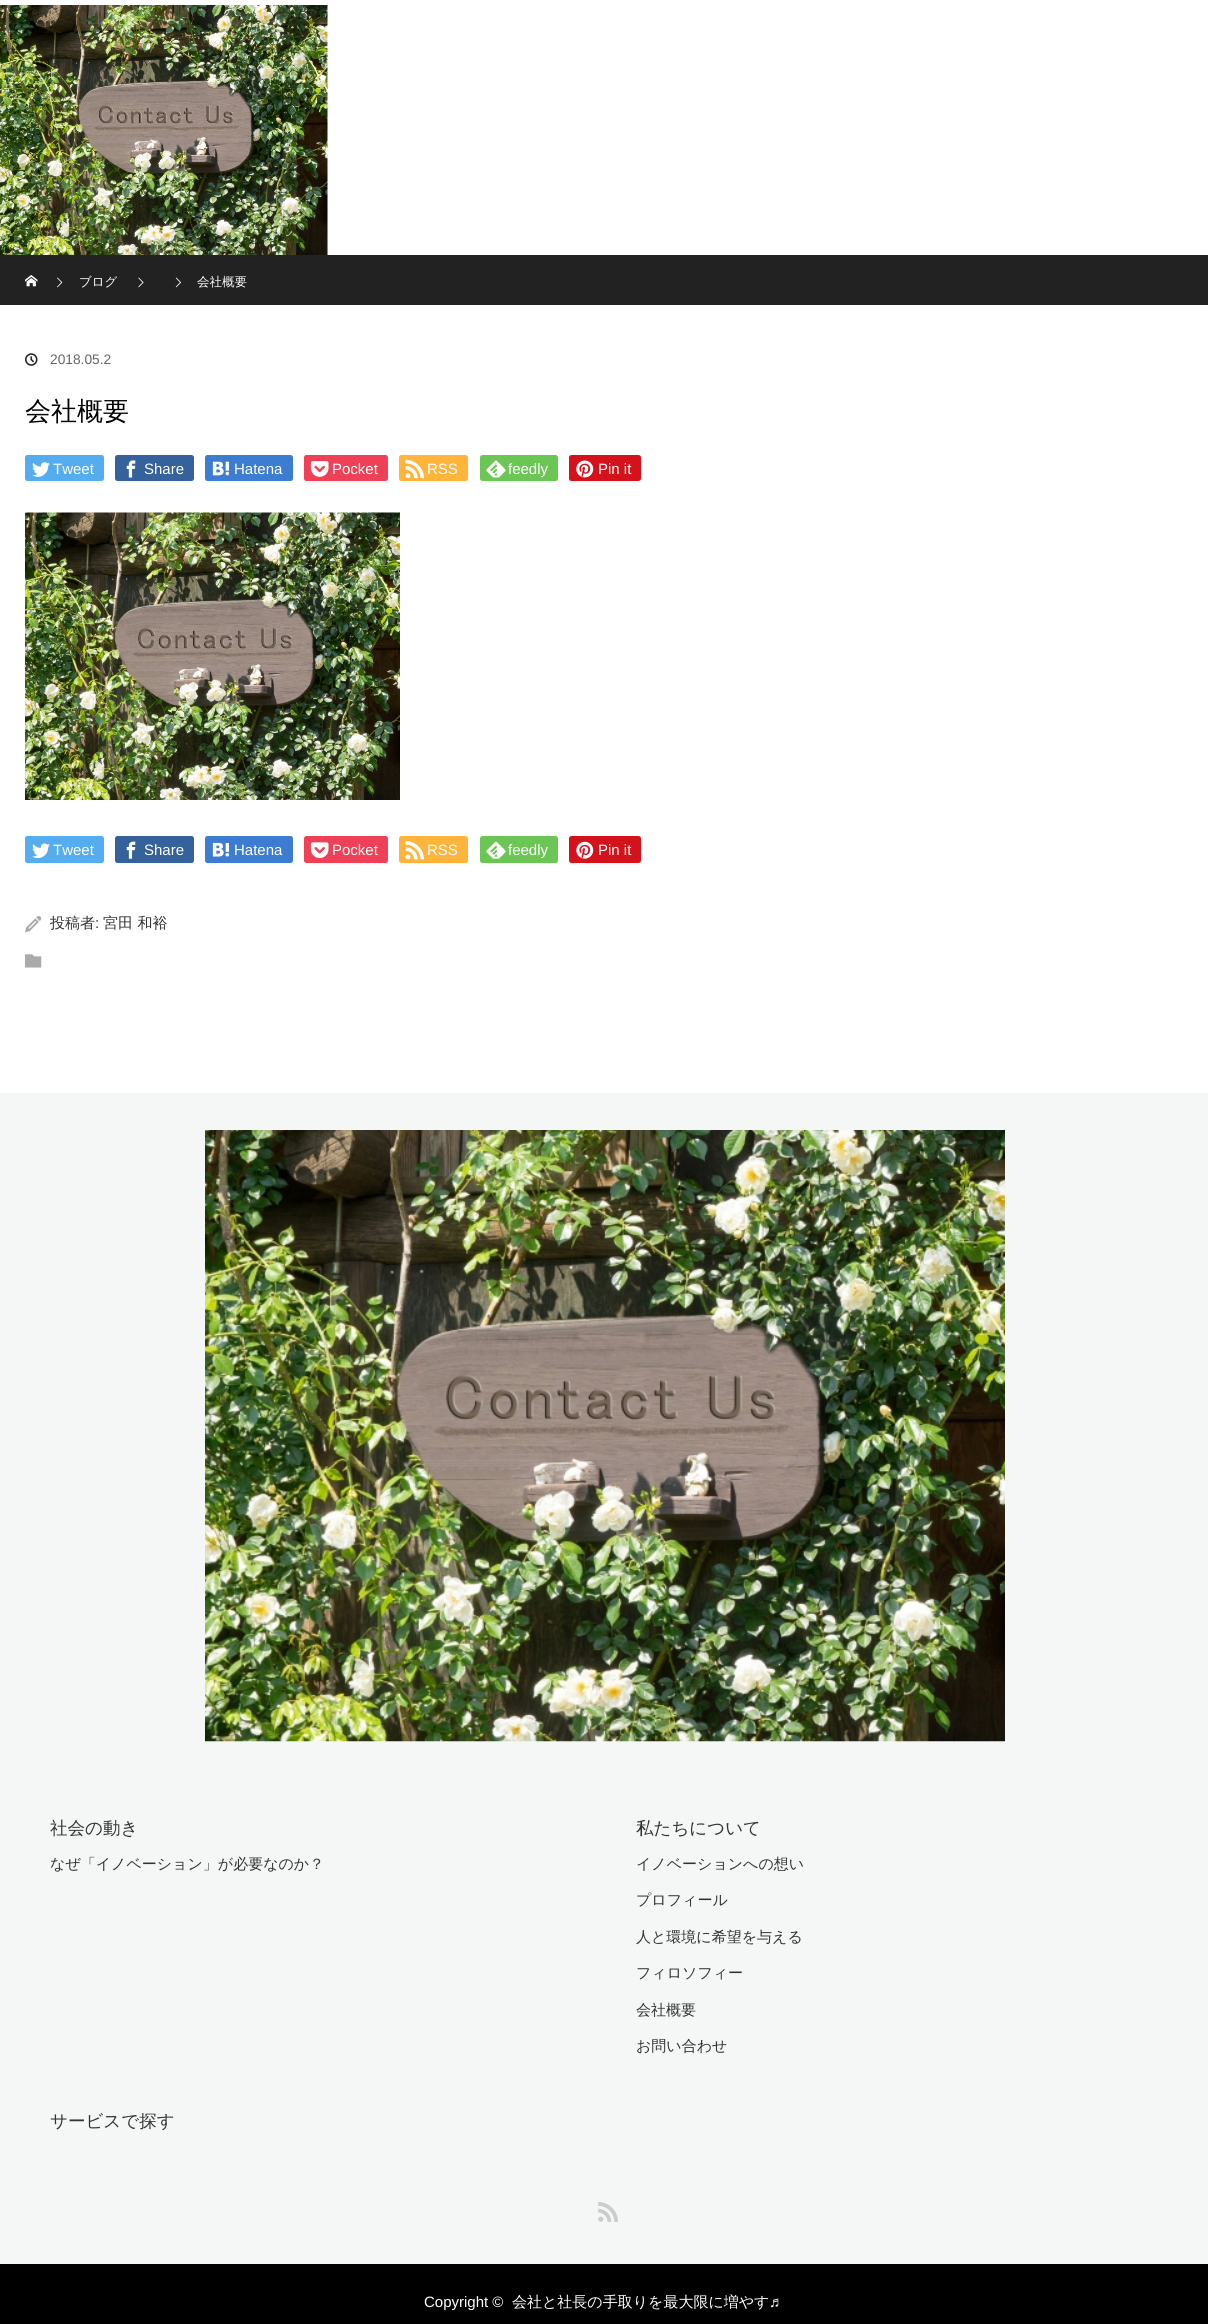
import math
import cairo

surface = cairo.ImageSurface(cairo.FORMAT_RGB24, 1208, 2324)
cr = cairo.Context(surface)
options = cairo.FontOptions()
options.set_hint_metrics(cairo.HINT_METRICS_OFF)
options.set_hint_style(cairo.HINT_STYLE_NONE)
cr.set_font_options(options)
cr.set_miter_limit(4)


def rgb(code):
    cr.set_source_rgb(*(v / 255 for v in bytes.fromhex(code[-6:])))


def rrect(x, y, w, h, r):
    cr.new_sub_path()
    for i, (u, v) in enumerate([(x + w - r, y + h - r), (x + r, y + h - r), (x + r, y + r), (x + w - r, y + r)]):
        cr.arc(u, v, r, i * math.pi / 2, (i + 1) * math.pi / 2)
    cr.close_path()


def image(path, x, y, w, h):
    cr.save()
    cr.set_source_surface(cairo.ImageSurface.create_from_png(path), x, y)
    cr.rectangle(x, y, w, h)
    cr.fill()
    cr.restore()


rgb("#ffffff")
cr.paint()
image("img/1.png", 0, 5, 328, 250)
rgb("#222222")
cr.rectangle(0, 255, 1208, 50)
cr.fill()
image("img/2.png", 25, 275, 13, 12)
image("img/3.png", 57, 277, 6, 11)
image("img/4.png", 138, 277, 6, 11)
image("img/5.png", 175, 277, 6, 11)
image("img/6.png", 25, 353, 13, 13)
rgb("#f7f7f7")
cr.new_path()
cr.move_to(25, 479)
cr.curve_to(25, 480, 25, 481, 26, 482)
cr.line_to(27, 483)
cr.line_to(89, 483)
cr.curve_to(105, 483, 104, 486, 104, 473)
cr.line_to(104, 457)
cr.line_to(104, 475)
cr.curve_to(104, 477, 104, 481, 101, 481)
cr.line_to(40, 481)
cr.curve_to(35, 481, 25, 483, 25, 479)
cr.close_path()
cr.fill()
rgb("#55acee")
rrect(25, 455, 79, 26, 2.5)
cr.fill()
image("img/7.png", 32, 462, 18, 15)
rgb("#f7f7f7")
cr.new_path()
cr.move_to(115, 479)
cr.curve_to(115, 480, 115, 481, 116, 482)
cr.line_to(117, 483)
cr.line_to(179, 483)
cr.curve_to(195, 483, 194, 486, 194, 473)
cr.line_to(194, 457)
cr.line_to(194, 475)
cr.curve_to(194, 477, 194, 481, 191, 481)
cr.line_to(130, 481)
cr.curve_to(125, 481, 115, 483, 115, 479)
cr.close_path()
cr.fill()
rgb("#35629a")
rrect(115, 455, 79, 26, 2.5)
cr.fill()
image("img/8.png", 126, 460, 10, 18)
rgb("#f7f7f7")
cr.new_path()
cr.move_to(205, 479)
cr.line_to(205, 480)
cr.curve_to(205, 482, 206, 483, 208, 483)
cr.line_to(290, 483)
cr.curve_to(292, 483, 293, 482, 293, 480)
cr.line_to(293, 458)
cr.line_to(292, 457)
cr.line_to(292, 472)
cr.curve_to(292, 485, 292, 481, 276, 481)
cr.line_to(221, 481)
cr.curve_to(216, 481, 205, 484, 205, 479)
cr.close_path()
cr.fill()
rgb("#3c7dd1")
rrect(205, 455, 88, 26, 2.5)
cr.fill()
image("img/9.png", 212, 461, 18, 15)
rgb("#f7f7f7")
cr.new_path()
cr.move_to(304, 480)
cr.curve_to(304, 487, 318, 483, 320, 483)
cr.line_to(372, 483)
cr.curve_to(391, 483, 388, 486, 388, 470)
cr.curve_to(388, 467, 389, 459, 387, 457)
cr.line_to(388, 472)
cr.curve_to(388, 485, 388, 481, 372, 481)
cr.line_to(306, 481)
cr.curve_to(305, 481, 304, 481, 304, 480)
cr.close_path()
cr.fill()
rgb("#ee4056")
rrect(304, 455, 84, 26, 2.5)
cr.fill()
image("img/10.png", 310, 461, 19, 16)
rgb("#f7f7f7")
cr.new_path()
cr.move_to(399, 480)
cr.curve_to(399, 486, 410, 483, 412, 483)
cr.line_to(455, 483)
cr.curve_to(471, 483, 468, 485, 468, 470)
cr.curve_to(468, 467, 469, 459, 467, 457)
cr.line_to(468, 472)
cr.curve_to(468, 484, 468, 481, 454, 481)
cr.line_to(412, 481)
cr.curve_to(410, 481, 401, 483, 399, 480)
cr.close_path()
cr.fill()
rgb("#ffb53c")
rrect(399, 455, 69, 26, 2.5)
cr.fill()
image("img/11.png", 405, 459, 19, 20)
rgb("#f7f7f7")
cr.new_path()
cr.move_to(480, 479)
cr.line_to(480, 481)
cr.curve_to(482, 485, 494, 483, 495, 483)
cr.line_to(543, 483)
cr.curve_to(561, 483, 558, 486, 558, 470)
cr.curve_to(558, 467, 559, 459, 557, 457)
cr.line_to(558, 472)
cr.curve_to(558, 484, 558, 481, 543, 481)
cr.line_to(495, 481)
cr.curve_to(489, 481, 480, 483, 480, 479)
cr.close_path()
cr.fill()
rgb("#6cc655")
rrect(480, 455, 78, 26, 2.5)
cr.fill()
image("img/12.png", 486, 460, 20, 18)
rgb("#f7f7f7")
cr.new_path()
cr.move_to(569, 480)
cr.curve_to(569, 486, 580, 483, 583, 483)
cr.line_to(627, 483)
cr.curve_to(630, 483, 641, 486, 641, 480)
cr.line_to(639, 481)
cr.line_to(582, 481)
cr.curve_to(581, 481, 571, 483, 569, 480)
cr.close_path()
cr.fill()
rgb("#d4121c")
rrect(569, 455, 72, 26, 2.5)
cr.fill()
image("img/13.png", 576, 460, 18, 18)
image("img/14.png", 25, 512, 375, 288)
rgb("#f7f7f7")
cr.new_path()
cr.move_to(25, 860)
cr.curve_to(25, 867, 34, 864, 40, 864)
cr.line_to(89, 864)
cr.curve_to(104, 864, 104, 867, 104, 854)
cr.line_to(104, 839)
cr.line_to(104, 860)
cr.curve_to(104, 861, 103, 862, 101, 862)
cr.line_to(28, 862)
cr.curve_to(26, 862, 25, 861, 25, 860)
cr.close_path()
cr.fill()
rgb("#55acee")
rrect(25, 836, 79, 27, 2.5)
cr.fill()
image("img/15.png", 32, 843, 18, 16)
rgb("#f7f7f7")
cr.new_path()
cr.move_to(115, 860)
cr.curve_to(115, 867, 124, 864, 130, 864)
cr.line_to(179, 864)
cr.curve_to(194, 864, 194, 867, 194, 854)
cr.line_to(194, 839)
cr.line_to(194, 860)
cr.curve_to(194, 861, 193, 862, 191, 862)
cr.line_to(118, 862)
cr.curve_to(116, 862, 115, 861, 115, 860)
cr.close_path()
cr.fill()
rgb("#35629a")
rrect(115, 836, 79, 27, 2.5)
cr.fill()
image("img/16.png", 126, 841, 10, 18)
rgb("#f7f7f7")
cr.new_path()
cr.move_to(205, 860)
cr.curve_to(205, 868, 216, 864, 221, 864)
cr.line_to(277, 864)
cr.curve_to(295, 864, 293, 867, 293, 851)
cr.curve_to(293, 848, 294, 841, 292, 839)
cr.line_to(292, 860)
cr.curve_to(292, 861, 291, 862, 290, 862)
cr.line_to(208, 862)
cr.curve_to(206, 862, 205, 861, 205, 860)
cr.close_path()
cr.fill()
rgb("#3c7dd1")
rrect(205, 836, 88, 27, 2.5)
cr.fill()
image("img/17.png", 212, 842, 18, 15)
rgb("#f7f7f7")
cr.new_path()
cr.move_to(304, 861)
cr.curve_to(304, 862, 304, 863, 306, 864)
cr.line_to(372, 864)
cr.curve_to(390, 864, 388, 867, 388, 851)
cr.curve_to(388, 848, 389, 841, 388, 839)
cr.line_to(388, 860)
cr.curve_to(388, 861, 386, 862, 385, 862)
cr.line_to(306, 862)
cr.curve_to(305, 862, 304, 862, 304, 861)
cr.close_path()
cr.fill()
rgb("#ee4056")
rrect(304, 836, 84, 27, 2.5)
cr.fill()
image("img/18.png", 310, 842, 19, 17)
rgb("#f7f7f7")
cr.new_path()
cr.move_to(399, 861)
cr.curve_to(399, 867, 411, 864, 412, 864)
cr.line_to(455, 864)
cr.curve_to(471, 864, 468, 866, 468, 851)
cr.curve_to(468, 848, 469, 841, 468, 839)
cr.line_to(468, 860)
cr.curve_to(468, 861, 466, 862, 465, 862)
cr.line_to(401, 862)
cr.curve_to(400, 862, 399, 862, 399, 861)
cr.close_path()
cr.fill()
rgb("#ffb53c")
rrect(399, 836, 69, 27, 2.5)
cr.fill()
image("img/19.png", 405, 841, 19, 19)
rgb("#f7f7f7")
cr.new_path()
cr.move_to(480, 860)
cr.curve_to(480, 867, 489, 864, 495, 864)
cr.line_to(543, 864)
cr.curve_to(561, 864, 558, 867, 558, 851)
cr.curve_to(558, 848, 559, 841, 558, 839)
cr.line_to(558, 860)
cr.curve_to(558, 861, 556, 862, 555, 862)
cr.line_to(482, 862)
cr.curve_to(481, 862, 480, 861, 480, 860)
cr.close_path()
cr.fill()
rgb("#6cc655")
rrect(480, 836, 78, 27, 2.5)
cr.fill()
image("img/20.png", 486, 841, 20, 18)
rgb("#f7f7f7")
cr.new_path()
cr.move_to(569, 861)
cr.curve_to(569, 867, 582, 864, 583, 864)
cr.line_to(627, 864)
cr.curve_to(628, 864, 641, 867, 641, 861)
cr.line_to(639, 862)
cr.line_to(582, 862)
cr.curve_to(581, 862, 571, 865, 569, 861)
cr.close_path()
cr.fill()
rgb("#d4121c")
rrect(569, 836, 72, 27, 2.5)
cr.fill()
image("img/21.png", 576, 841, 18, 18)
image("img/22.png", 25, 916, 17, 17)
image("img/23.png", 25, 954, 17, 14)
rgb("#f5f7f6")
cr.rectangle(0, 1093, 1208, 1171)
cr.fill()
image("img/24.png", 205, 1130, 800, 612)
image("img/25.png", 598, 2202, 20, 20)
rgb("#000000")
cr.rectangle(0, 2264, 1208, 60)
cr.fill()
cr.select_font_face("WenQuanYi Zen Hei Medium")
cr.set_font_size(12.5)
rgb("#ffffff")
cr.move_to(79, 286)
cr.show_text("ブログ")
cr.move_to(197, 286)
cr.show_text("会社概要")
cr.select_font_face("Liberation Sans")
cr.set_font_size(13.75)
rgb("#666666")
cr.move_to(50, 364)
cr.show_text("2018.05.2")
cr.select_font_face("WenQuanYi Zen Hei Medium")
cr.set_font_size(26)
rgb("#000000")
cr.move_to(25, 420)
cr.show_text("会社概要")
cr.select_font_face("Liberation Sans")
cr.set_font_size(15)
rgb("#ffffff")
for x, y, s in [
    (53, 474, "Tweet"),
    (144, 474, "Share"),
    (234, 474, "Hatena"),
    (332, 474, "Pocket"),
    (427, 474, "RSS"),
    (508, 474, "feedly"),
    (598, 474, "Pin it"),
    (53, 855, "Tweet"),
    (144, 855, "Share"),
    (234, 855, "Hatena"),
    (332, 855, "Pocket"),
    (427, 855, "RSS"),
    (508, 855, "feedly"),
    (598, 855, "Pin it"),
]:
    cr.move_to(x, y)
    cr.show_text(s)
cr.select_font_face("WenQuanYi Zen Hei Medium")
rgb("#333333")
cr.move_to(50, 928)
cr.show_text("投稿者")
cr.select_font_face("Liberation Sans")
cr.move_to(95, 928)
cr.show_text(":")
cr.select_font_face("WenQuanYi Zen Hei Medium")
cr.move_to(103, 928)
cr.show_text("宮田 和裕")
cr.set_font_size(17.5)
cr.move_to(50, 1834)
cr.show_text("社会の動き")
cr.set_font_size(15)
cr.move_to(50, 1869)
cr.show_text("なぜ「イノベーション」が必要なのか？")
cr.set_font_size(17.5)
cr.move_to(636, 1834)
cr.show_text("私たちについて")
cr.set_font_size(15)
for x, y, s in [
    (636, 1869, "イノベーションへの想い"),
    (636, 1905, "プロフィール"),
    (636, 1942, "人と環境に希望を与える"),
    (636, 1978, "フィロソフィー"),
    (636, 2015, "会社概要"),
    (636, 2051, "お問い合わせ"),
]:
    cr.move_to(x, y)
    cr.show_text(s)
cr.set_font_size(17.5)
cr.move_to(50, 2127)
cr.show_text("サービスで探す")
cr.select_font_face("Liberation Sans")
cr.set_font_size(15)
rgb("#ffffff")
cr.move_to(424, 2307)
cr.show_text("Copyright ©")
cr.select_font_face("WenQuanYi Zen Hei Medium")
cr.move_to(512, 2307)
cr.show_text("会社と社長の手取りを最大限に増やす")
cr.select_font_face("Liberation Sans")
cr.move_to(769, 2307)
cr.show_text("♬")
surface.write_to_png("page.png")
